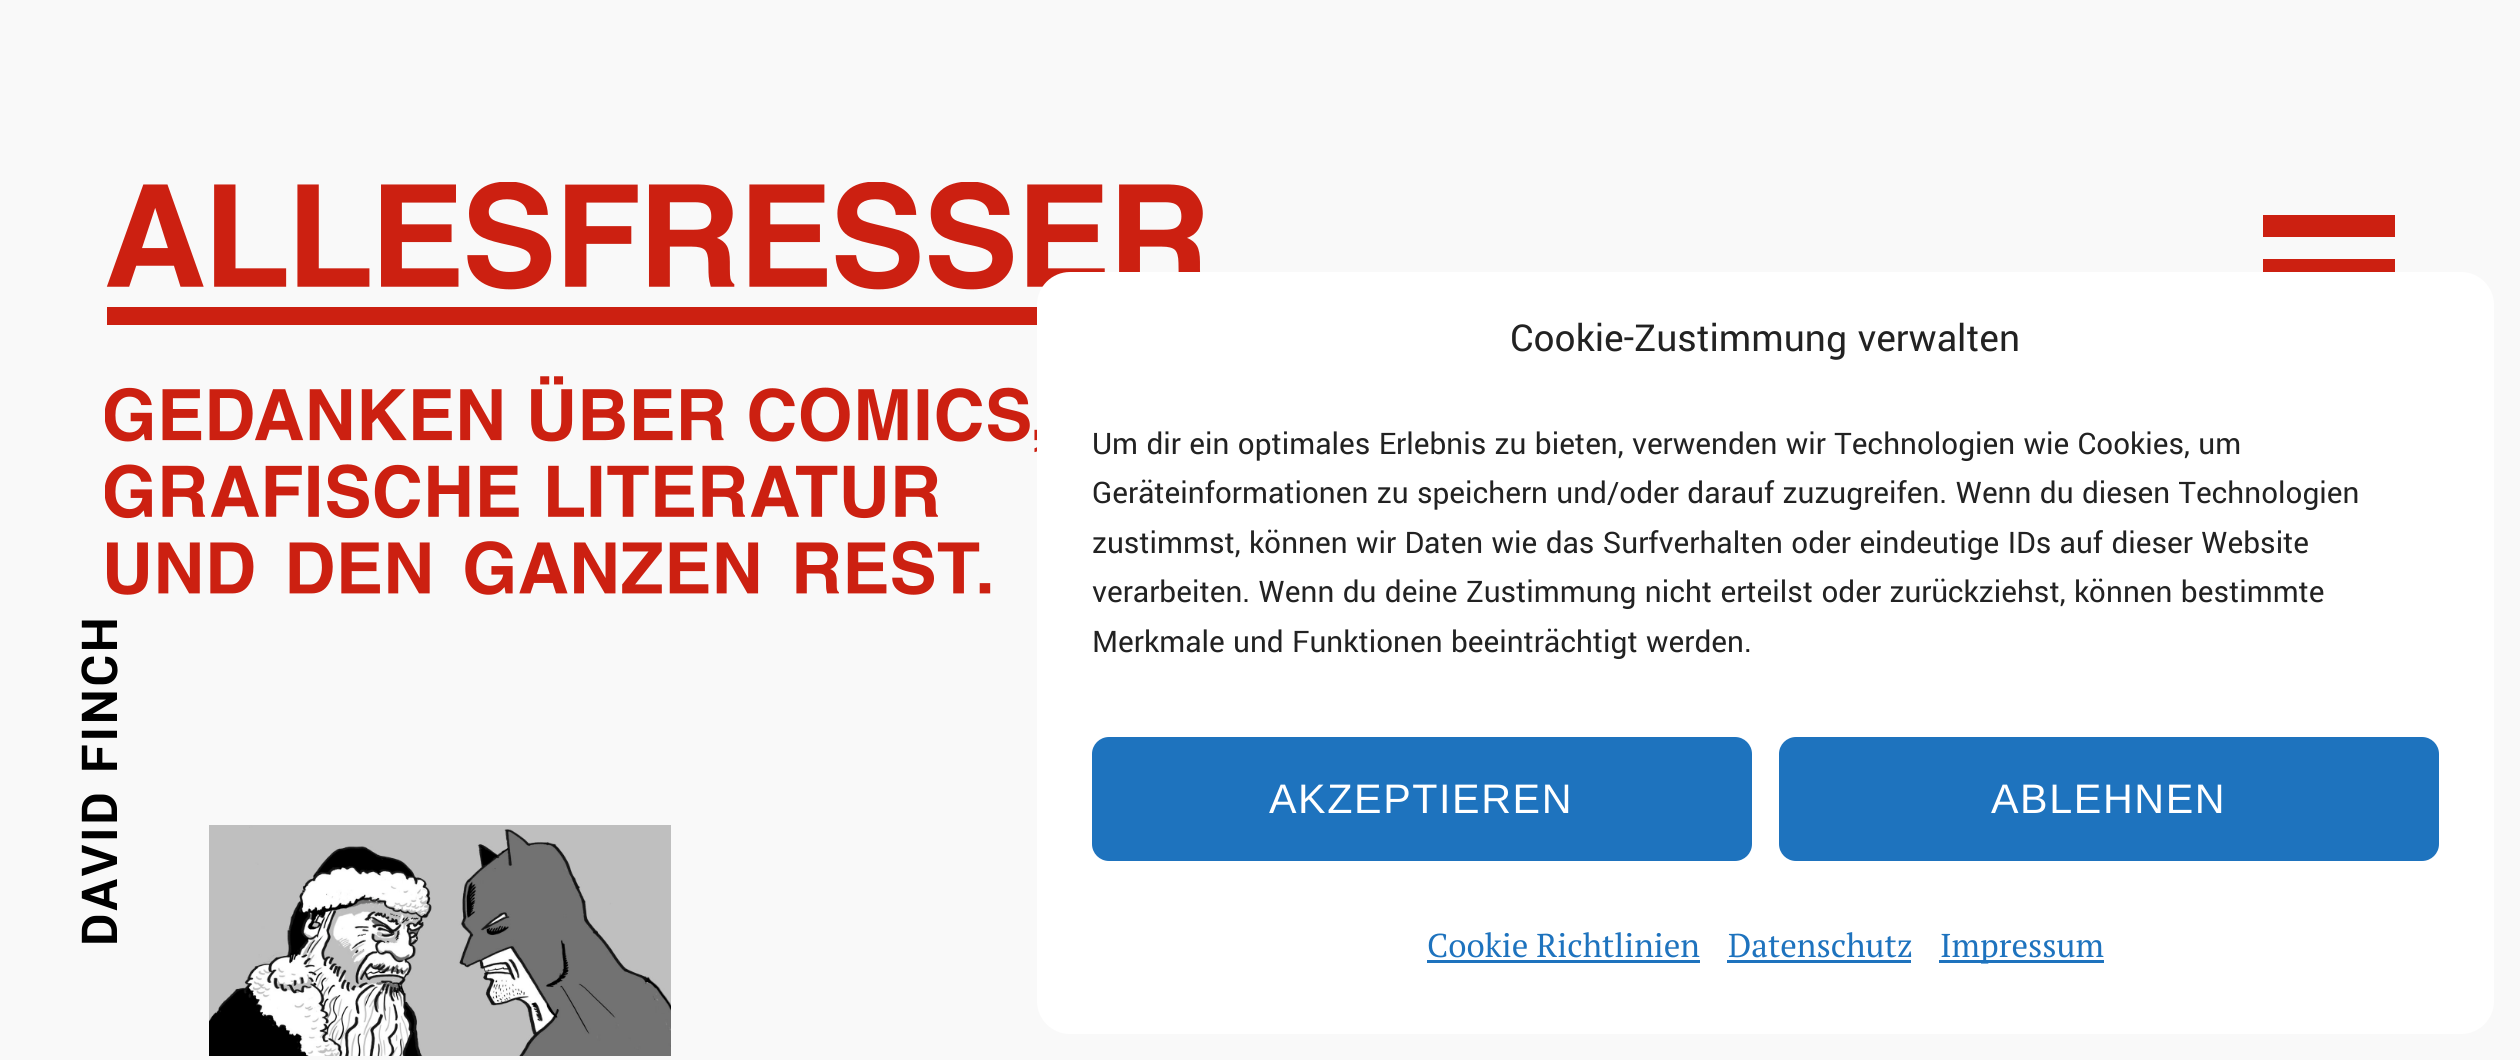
import math
import cairo

surface = cairo.ImageSurface(cairo.FORMAT_RGB24, 2520, 1060)
cr = cairo.Context(surface)
options = cairo.FontOptions()
options.set_hint_metrics(cairo.HINT_METRICS_OFF)
options.set_hint_style(cairo.HINT_STYLE_NONE)
cr.set_font_options(options)
cr.set_miter_limit(4)


def rgb(code):
    cr.set_source_rgb(*(v / 255 for v in bytes.fromhex(code[-6:])))


def tracked(x, y, s, letter, word):
    cr.move_to(x, y)
    for ch in s:
        cr.show_text(ch)
        cr.rel_move_to(letter + word * (ch == ' '), 0)


def rrect(x, y, w, h, r):
    cr.new_sub_path()
    for i, (u, v) in enumerate([(x + w - r, y + h - r), (x + r, y + h - r), (x + r, y + r), (x + w - r, y + r)]):
        cr.arc(u, v, r, i * math.pi / 2, (i + 1) * math.pi / 2)
    cr.close_path()


def image(path, x, y, w, h):
    cr.save()
    cr.set_source_surface(cairo.ImageSurface.create_from_png(path), x, y)
    cr.rectangle(x, y, w, h)
    cr.fill()
    cr.restore()


rgb("#f9f9f9")
cr.paint()
image("img/1.png", 105, 182, 1098, 413)
rgb("#cc2011")
cr.rectangle(2263, 215, 132, 22)
cr.fill()
cr.rectangle(2263, 259, 132, 13)
cr.fill()
image("img/2.png", 209, 825, 462, 231)
rgb("#ffffff")
rrect(1037, 272, 1457, 762, 33)
cr.fill()
rgb("#1e73be")
rrect(1093.5, 738.5, 657, 121, 15.5)
cr.fill_preserve()
cr.set_line_width(3)
cr.stroke()
rrect(1780.5, 738.5, 657, 121, 15.5)
cr.fill_preserve()
cr.stroke()
for x, y, w, h, color in [
    (1427, 960, 273, 3, "#1e73be"),
    (1727, 960, 184, 3, "#1e73be"),
    (1939, 960, 165, 3, "#1e73be"),
]:
    rgb(color)
    cr.rectangle(x, y, w, h)
    cr.fill()
cr.select_font_face("Yantramanav", cairo.FONT_SLANT_NORMAL, cairo.FONT_WEIGHT_BOLD)
cr.set_font_size(55)
rgb("#000000")
cr.save()
cr.translate(117, 946)
cr.rotate(-90 * math.pi / 180)
tracked(0, 0, "DAVID FINCH", 2.75, 0)
cr.restore()
cr.select_font_face("Yantramanav")
cr.set_font_size(41.25)
rgb("#222222")
cr.move_to(1510, 351)
cr.show_text("Cookie-Zustimmung verwalten")
cr.set_font_size(33)
for x, y, s in [
    (1092, 454, "Um dir ein optimales Erlebnis zu bieten, verwenden wir Technologien wie Cookies, um"),
    (1092, 503, "Geräteinformationen zu speichern und/oder darauf zuzugreifen. Wenn du diesen Technologien"),
    (1092, 553, "zustimmst, können wir Daten wie das Surfverhalten oder eindeutige IDs auf dieser Website"),
    (1092, 602, "verarbeiten. Wenn du deine Zustimmung nicht erteilst oder zurückziehst, können bestimmte"),
    (1092, 652, "Merkmale und Funktionen beeinträchtigt werden."),
]:
    cr.move_to(x, y)
    cr.show_text(s)
cr.select_font_face("Liberation Sans")
cr.set_font_size(41.25)
rgb("#ffffff")
tracked(1269, 813, "AKZEPTIEREN", 1.6, 0)
tracked(1991, 813, "ABLEHNEN", 1.6, 0)
cr.select_font_face("PT Serif")
cr.set_font_size(33)
rgb("#1e73be")
for x, y, s in [
    (1427, 957, "Cookie Richtlinien"),
    (1728, 957, "Datenschutz"),
    (1940, 957, "Impressum"),
]:
    cr.move_to(x, y)
    cr.show_text(s)
surface.write_to_png("page.png")
